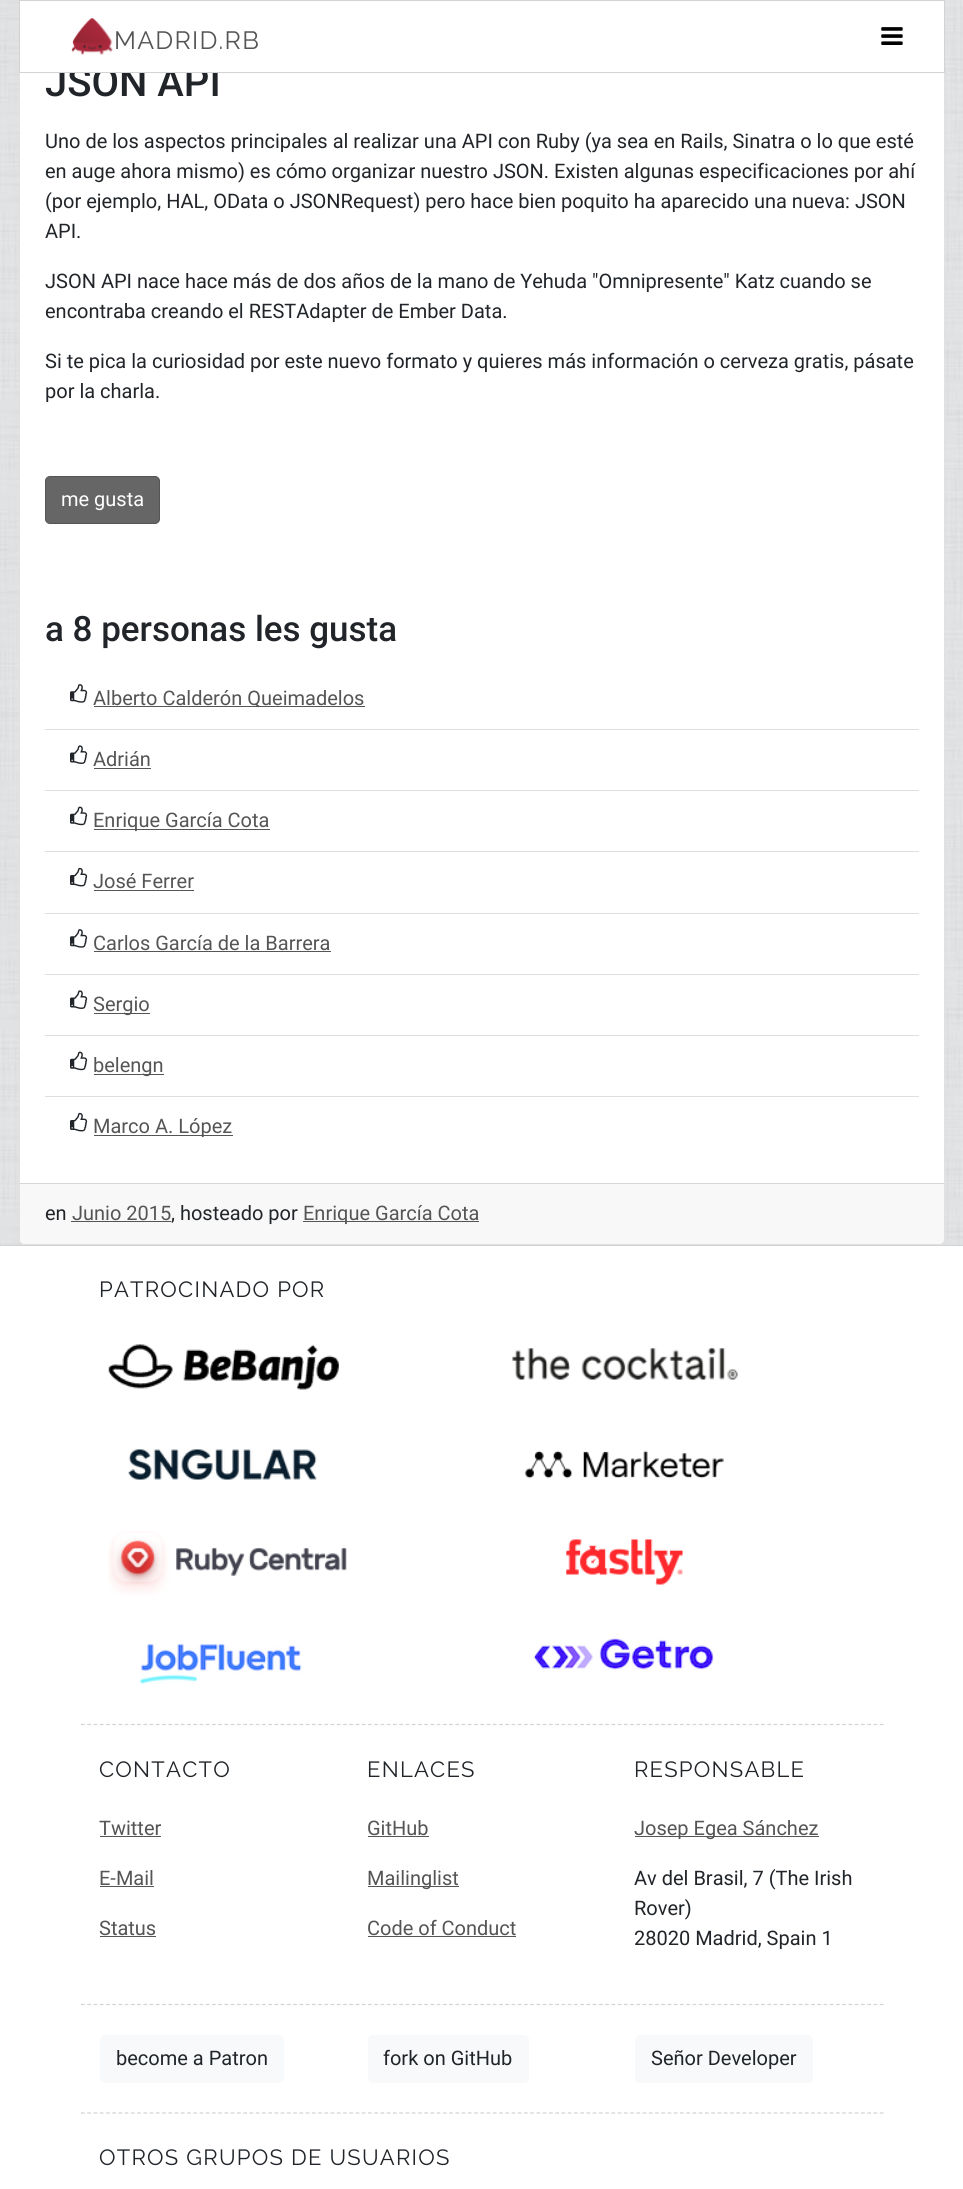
import math
import cairo

surface = cairo.ImageSurface(cairo.FORMAT_RGB24, 963, 2189)
cr = cairo.Context(surface)
options = cairo.FontOptions()
options.set_hint_metrics(cairo.HINT_METRICS_OFF)
options.set_hint_style(cairo.HINT_STYLE_NONE)
cr.set_font_options(options)
cr.set_miter_limit(4)


def rgb(code):
    cr.set_source_rgb(*(v / 255 for v in bytes.fromhex(code[-6:])))


def tracked(x, y, s, letter, word):
    cr.move_to(x, y)
    for ch in s:
        cr.show_text(ch)
        cr.rel_move_to(letter + word * (ch == ' '), 0)


def rrect(x, y, w, h, r):
    cr.new_sub_path()
    for i, (u, v) in enumerate([(x + w - r, y + h - r), (x + r, y + h - r), (x + r, y + r), (x + w - r, y + r)]):
        cr.arc(u, v, r, i * math.pi / 2, (i + 1) * math.pi / 2)
    cr.close_path()


def image(path, x, y, w, h):
    cr.save()
    cr.set_source_surface(cairo.ImageSurface.create_from_png(path), x, y)
    cr.rectangle(x, y, w, h)
    cr.fill()
    cr.restore()


rgb("#ffffff")
cr.paint()
image("img/1.png", 0, 0, 963, 1245)
rgb("#ffffff")
rrect(19, -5, 926, 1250, 5)
cr.fill()
rrect(19.5, -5.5, 925, 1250, 4.5)
cr.set_source_rgba(0, 0, 0, 0.12)
cr.set_line_width(1)
cr.stroke()
rgb("#666666")
rrect(45.5, 476.5, 114, 47, 4.5)
cr.fill_preserve()
rgb("#555555")
cr.stroke()
rgb("#dfdfdf")
cr.rectangle(45, 729, 874, 1)
cr.fill()
image("img/4.png", 70, 684, 18, 19)
rgb("#555555")
cr.rectangle(94, 706, 271, 1)
cr.fill()
rgb("#dfdfdf")
cr.rectangle(45, 790, 874, 1)
cr.fill()
image("img/5.png", 70, 745, 18, 19)
rgb("#555555")
cr.rectangle(94, 768, 57, 1)
cr.fill()
rgb("#dfdfdf")
cr.rectangle(45, 851, 874, 1)
cr.fill()
image("img/6.png", 70, 806, 18, 20)
rgb("#555555")
cr.rectangle(94, 829, 176, 1)
cr.fill()
rgb("#dfdfdf")
cr.rectangle(45, 913, 874, 1)
cr.fill()
image("img/7.png", 70, 867, 18, 20)
rgb("#555555")
cr.rectangle(94, 890, 100, 1)
cr.fill()
rgb("#dfdfdf")
cr.rectangle(45, 974, 874, 1)
cr.fill()
image("img/4.png", 70, 929, 18, 19)
rgb("#555555")
cr.rectangle(94, 951, 237, 1)
cr.fill()
rgb("#dfdfdf")
cr.rectangle(45, 1035, 874, 1)
cr.fill()
image("img/5.png", 70, 990, 18, 19)
rgb("#555555")
cr.rectangle(94, 1013, 56, 1)
cr.fill()
rgb("#dfdfdf")
cr.rectangle(45, 1096, 874, 1)
cr.fill()
image("img/6.png", 70, 1051, 18, 20)
rgb("#555555")
cr.rectangle(94, 1074, 70, 1)
cr.fill()
image("img/7.png", 70, 1112, 18, 20)
cr.rectangle(94, 1135, 139, 1)
cr.fill()
cr.set_source_rgba(0, 0, 0, 0.03)
cr.rectangle(20, 1184, 924, 60)
cr.fill()
rgb("#d8d8d8")
cr.rectangle(20, 1183, 924, 1)
cr.fill()
rgb("#555555")
cr.rectangle(71, 1221, 100, 1)
cr.rectangle(303, 1221, 176, 1)
cr.fill()
rgb("#d3d3d3")
cr.rectangle(0, 1245, 963, 1)
cr.fill()
cr.new_path()
cr.move_to(81, 1724.5)
cr.line_to(884, 1724.5)
cr.set_line_width(1.2)
cr.set_dash([3.75, 2.49])
cr.stroke()
image("img/8.png", 108, 1344, 231, 46)
image("img/9.png", 512, 1348, 226, 32)
image("img/10.png", 128, 1449, 189, 31)
image("img/11.png", 524, 1450, 200, 29)
image("img/12.png", 108, 1531, 239, 64)
image("img/13.png", 566, 1539, 117, 46)
image("img/14.png", 139, 1644, 163, 40)
image("img/15.png", 533, 1638, 181, 32)
cr.new_path()
cr.move_to(81, 2004.5)
cr.line_to(884, 2004.5)
cr.stroke()
for x, y, w, h, color in [
    (100, 1836, 61, 1, "#555555"),
    (100, 1886, 54, 1, "#555555"),
    (100, 1936, 56, 1, "#555555"),
    (368, 1836, 61, 1, "#555555"),
    (368, 1886, 91, 1, "#555555"),
    (368, 1936, 148, 1, "#555555"),
    (635, 1836, 184, 1, "#555555"),
]:
    rgb(color)
    cr.rectangle(x, y, w, h)
    cr.fill()
cr.new_path()
cr.move_to(81, 2113)
cr.line_to(884, 2113)
rgb("#d3d3d3")
cr.stroke()
rgb("#f8f9fa")
rrect(100, 2035, 184, 48, 5)
cr.fill()
rrect(368, 2035, 161, 48, 5)
cr.fill()
rrect(635, 2035, 178, 48, 5)
cr.fill()
cr.select_font_face("Roboto Medium")
cr.set_font_size(40)
rgb("#212529")
cr.move_to(45, 96)
cr.show_text("JSON API")
rgb("#ffffff")
cr.rectangle(59, 67, 159, 5)
cr.fill()
cr.rectangle(19.5, 0.5, 925, 72)
rgb("#d3d3d3")
cr.set_line_width(1)
cr.set_dash([])
cr.stroke()
image("img/3.png", 881, 27, 22, 18)
cr.select_font_face("Raleway Thin")
cr.set_font_size(25)
rgb("#555555")
tracked(114, 49, "MADRID.RB", 1.25, 0)
image("img/2.png", 71, 18, 42, 37)
cr.select_font_face("Roboto")
cr.set_font_size(20)
rgb("#212529")
for x, y, s in [
    (45, 148, "Uno de los aspectos principales al realizar una API con Ruby (ya sea en Rails, Sinatra o lo que esté"),
    (45, 178, "en auge ahora mismo) es cómo organizar nuestro JSON. Existen algunas especificaciones por ahí"),
    (45, 208, "(por ejemplo, HAL, OData o JSONRequest) pero hace bien poquito ha aparecido una nueva: JSON"),
    (45, 238, "API."),
    (45, 288, "JSON API nace hace más de dos años de la mano de Yehuda \"Omnipresente\" Katz cuando se"),
    (45, 318, "encontraba creando el RESTAdapter de Ember Data."),
    (45, 368, "Si te pica la curiosidad por este nuevo formato y quieres más información o cerveza gratis, pásate"),
    (45, 398, "por la charla."),
]:
    cr.move_to(x, y)
    cr.show_text(s)
rgb("#ffffff")
cr.move_to(61, 506)
cr.show_text("me gusta")
cr.select_font_face("Roboto Medium")
cr.set_font_size(35)
rgb("#212529")
cr.move_to(45, 641)
cr.show_text("a 8 personas les gusta")
cr.select_font_face("Roboto")
cr.set_font_size(20)
rgb("#555555")
for x, y, s in [
    (93, 705, "Alberto Calderón Queimadelos"),
    (93, 766, "Adrián"),
    (93, 827, "Enrique García Cota"),
    (93, 888, "José Ferrer"),
    (93, 950, "Carlos García de la Barrera"),
    (93, 1011, "Sergio"),
    (93, 1072, "belengn"),
    (93, 1133, "Marco A. López"),
]:
    cr.move_to(x, y)
    cr.show_text(s)
rgb("#212529")
cr.move_to(45, 1220)
cr.show_text("en")
rgb("#555555")
cr.move_to(72, 1220)
cr.show_text("Junio 2015")
rgb("#212529")
cr.move_to(171, 1220)
cr.show_text(", hosteado por")
rgb("#555555")
cr.move_to(303, 1220)
cr.show_text("Enrique García Cota")
cr.select_font_face("Raleway Thin")
cr.set_font_size(22)
rgb("#212529")
tracked(99, 1297, "PATROCINADO POR", 1.25, 0)
tracked(99, 1777, "CONTACTO", 1.25, 0)
cr.select_font_face("Roboto")
cr.set_font_size(20)
rgb("#555555")
for x, y, s in [
    (99, 1835, "Twitter"),
    (99, 1885, "E-Mail"),
    (99, 1935, "Status"),
]:
    cr.move_to(x, y)
    cr.show_text(s)
cr.select_font_face("Raleway Thin")
cr.set_font_size(22)
rgb("#212529")
tracked(367, 1777, "ENLACES", 1.25, 0)
cr.select_font_face("Roboto")
cr.set_font_size(20)
rgb("#555555")
for x, y, s in [
    (367, 1835, "GitHub"),
    (367, 1885, "Mailinglist"),
    (367, 1935, "Code of Conduct"),
]:
    cr.move_to(x, y)
    cr.show_text(s)
cr.select_font_face("Raleway Thin")
cr.set_font_size(22)
rgb("#212529")
tracked(634, 1777, "RESPONSABLE", 1.25, 0)
cr.select_font_face("Roboto")
cr.set_font_size(20)
rgb("#555555")
cr.move_to(634, 1835)
cr.show_text("Josep Egea Sánchez")
rgb("#212529")
for x, y, s in [
    (634, 1885, "Av del Brasil, 7 (The Irish"),
    (634, 1915, "Rover)"),
    (634, 1945, "28020 Madrid, Spain 1"),
    (116, 2065, "become a Patron"),
    (383, 2065, "fork on GitHub"),
    (651, 2065, "Señor Developer"),
]:
    cr.move_to(x, y)
    cr.show_text(s)
cr.select_font_face("Raleway Thin")
cr.set_font_size(22)
tracked(99, 2165, "OTROS GRUPOS DE USUARIOS", 1.25, 0)
surface.write_to_png("page.png")
